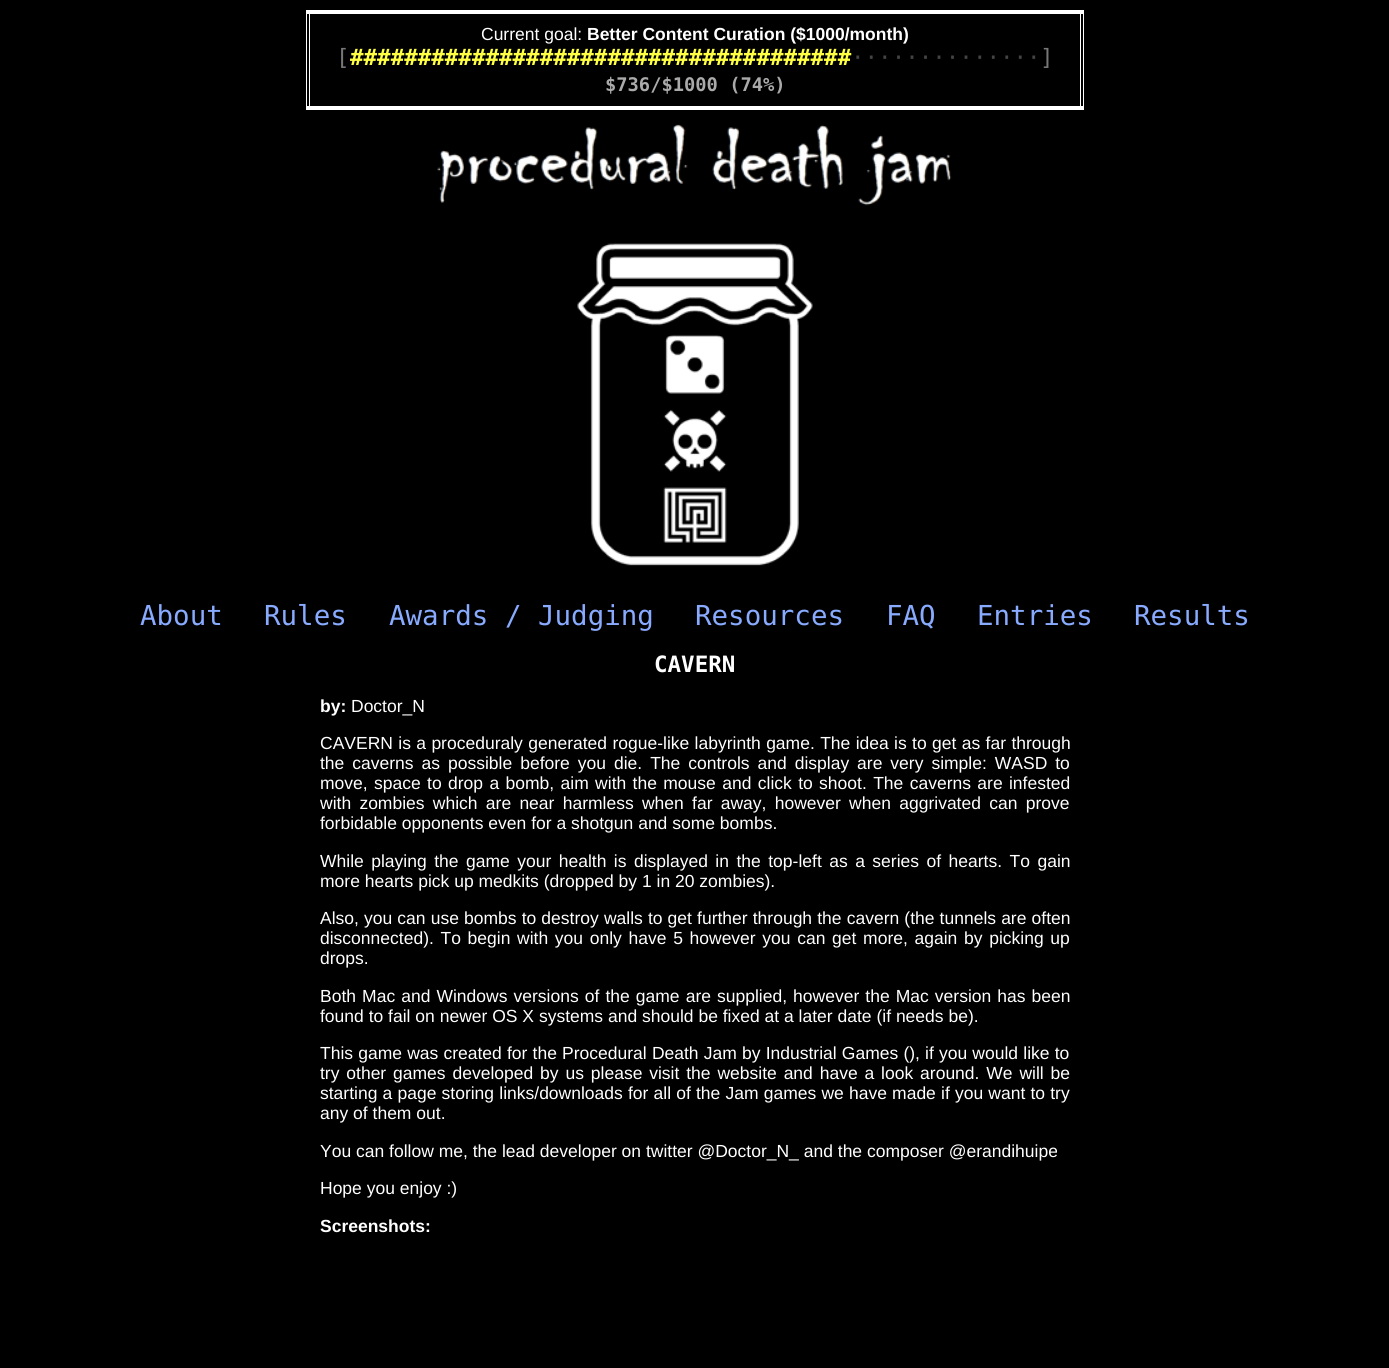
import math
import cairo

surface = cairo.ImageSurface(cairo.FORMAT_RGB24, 1389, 1368)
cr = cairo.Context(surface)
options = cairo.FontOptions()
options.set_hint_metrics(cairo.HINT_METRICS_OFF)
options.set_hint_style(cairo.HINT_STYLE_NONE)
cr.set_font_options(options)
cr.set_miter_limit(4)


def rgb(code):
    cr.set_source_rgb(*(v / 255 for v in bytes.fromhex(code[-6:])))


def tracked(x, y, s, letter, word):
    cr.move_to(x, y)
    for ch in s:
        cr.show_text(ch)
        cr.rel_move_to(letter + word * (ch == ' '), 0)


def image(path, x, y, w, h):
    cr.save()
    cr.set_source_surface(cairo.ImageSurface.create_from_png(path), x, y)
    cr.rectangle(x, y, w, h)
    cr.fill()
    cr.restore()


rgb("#000000")
cr.paint()
for x, y, w, h, color in [
    (306, 10, 778, 4, "#ffffff"),
    (1080, 10, 1, 100, "#ffffff"),
    (1083, 10, 1, 100, "#ffffff"),
    (306, 106, 778, 4, "#ffffff"),
    (306, 10, 1, 100, "#ffffff"),
    (309, 10, 1, 100, "#ffffff"),
]:
    rgb(color)
    cr.rectangle(x, y, w, h)
    cr.fill()
image("img/1.png", 437, 124, 515, 442)
cr.select_font_face("Liberation Sans")
cr.set_font_size(17.5)
cr.move_to(481, 40)
cr.show_text("Current goal:")
cr.select_font_face("Liberation Sans", cairo.FONT_SLANT_NORMAL, cairo.FONT_WEIGHT_BOLD)
cr.move_to(587, 40)
cr.show_text("Better Content Curation ($1000/month)")
cr.select_font_face("DejaVu Sans Mono")
cr.set_font_size(22.5)
rgb("#777777")
cr.move_to(336, 65)
cr.show_text("[")
cr.select_font_face("DejaVu Sans Mono", cairo.FONT_SLANT_NORMAL, cairo.FONT_WEIGHT_BOLD)
rgb("#ffff44")
cr.move_to(350, 65)
cr.show_text("#####################################")
cr.select_font_face("DejaVu Sans Mono")
rgb("#444444")
cr.move_to(851, 65)
cr.show_text("··············")
rgb("#777777")
cr.move_to(1040, 65)
cr.show_text("]")
cr.select_font_face("DejaVu Sans Mono", cairo.FONT_SLANT_NORMAL, cairo.FONT_WEIGHT_BOLD)
cr.set_font_size(18.75)
rgb("#aaaaaa")
cr.move_to(605, 91)
cr.show_text("$736/$1000 (74%)")
cr.select_font_face("DejaVu Sans Mono")
cr.set_font_size(27.5)
rgb("#88aaff")
for x, y, s in [
    (140, 625, "About"),
    (264, 625, "Rules"),
    (389, 625, "Awards / Judging"),
    (695, 625, "Resources"),
    (886, 625, "FAQ"),
    (977, 625, "Entries"),
    (1134, 625, "Results"),
]:
    cr.move_to(x, y)
    cr.show_text(s)
cr.select_font_face("DejaVu Sans Mono", cairo.FONT_SLANT_NORMAL, cairo.FONT_WEIGHT_BOLD)
cr.set_font_size(22.5)
rgb("#ffffff")
cr.move_to(654, 672)
cr.show_text("CAVERN")
cr.select_font_face("Liberation Sans", cairo.FONT_SLANT_NORMAL, cairo.FONT_WEIGHT_BOLD)
cr.set_font_size(17.5)
cr.move_to(320, 712)
cr.show_text("by:")
cr.select_font_face("Liberation Sans")
cr.move_to(351, 712)
cr.show_text("Doctor_N")
tracked(320, 749, "CAVERN is a proceduraly generated rogue-like labyrinth game. The idea is to get as far through", 0, 0.5)
tracked(320, 769, "the caverns as possible before you die. The controls and display are very simple: WASD to", 0, 3.1)
tracked(320, 789, "move, space to drop a bomb, aim with the mouse and click to shoot. The caverns are infested", 0, 1.5)
tracked(320, 809, "with zombies which are near harmless when far away, however when aggrivated can prove", 0, 3.4)
cr.move_to(320, 829)
cr.show_text("forbidable opponents even for a shotgun and some bombs.")
tracked(320, 867, "While playing the game your health is displayed in the top-left as a series of hearts. To gain", 0, 2.6)
cr.move_to(320, 887)
cr.show_text("more hearts pick up medkits (dropped by 1 in 20 zombies).")
tracked(320, 924, "Also, you can use bombs to destroy walls to get further through the cavern (the tunnels are often", 0, 0.25)
tracked(320, 944, "disconnected). To begin with you only have 5 however you can get more, again by picking up", 0, 1.8)
cr.move_to(320, 964)
cr.show_text("drops.")
tracked(320, 1002, "Both Mac and Windows versions of the game are supplied, however the Mac version has been", 0, 1.2)
cr.move_to(320, 1022)
cr.show_text("found to fail on newer OS X systems and should be fixed at a later date (if needs be).")
tracked(320, 1059, "This game was created for the Procedural Death Jam by Industrial Games (), if you would like to", 0, 0.3)
tracked(320, 1079, "try other games developed by us please visit the website and have a look around. We will be", 0, 2)
tracked(320, 1099, "starting a page storing links/downloads for all of the Jam games we have made if you want to try", 0, 0.3)
for x, y, s in [
    (320, 1119, "any of them out."),
    (320, 1157, "You can follow me, the lead developer on twitter @Doctor_N_ and the composer @erandihuipe"),
    (320, 1194, "Hope you enjoy :)"),
]:
    cr.move_to(x, y)
    cr.show_text(s)
cr.select_font_face("Liberation Sans", cairo.FONT_SLANT_NORMAL, cairo.FONT_WEIGHT_BOLD)
cr.move_to(320, 1232)
cr.show_text("Screenshots:")
surface.write_to_png("page.png")
